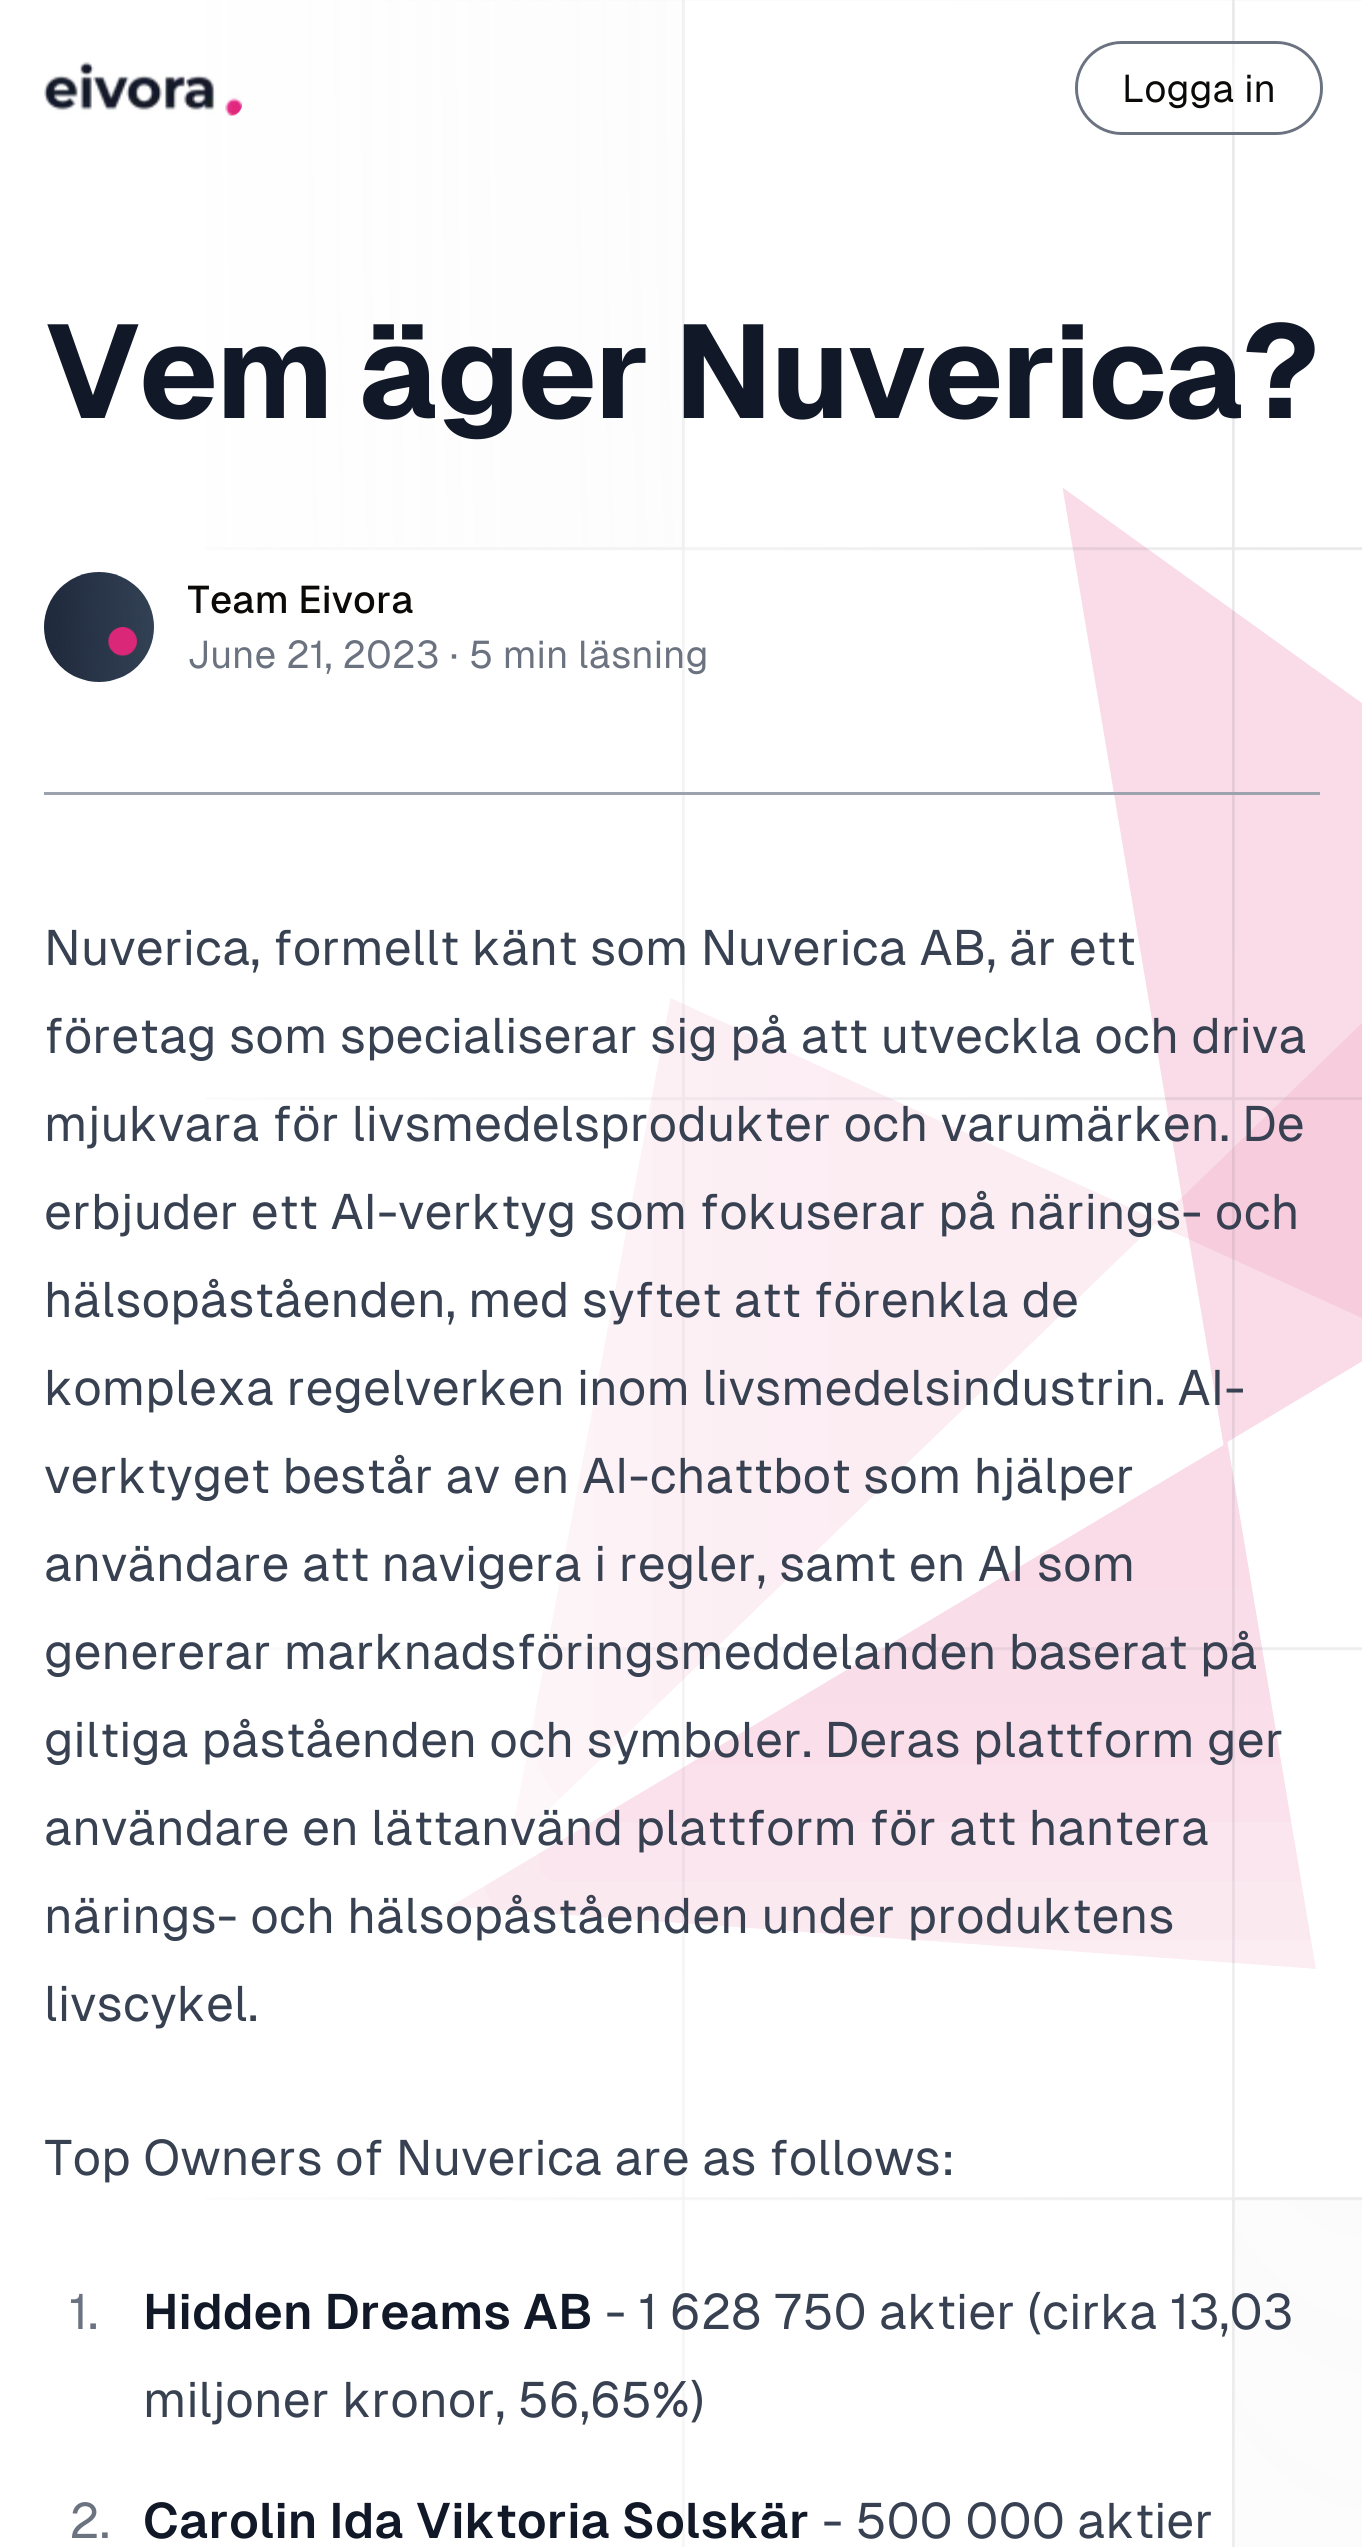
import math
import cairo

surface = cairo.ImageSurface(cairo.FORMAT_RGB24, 1362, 2547)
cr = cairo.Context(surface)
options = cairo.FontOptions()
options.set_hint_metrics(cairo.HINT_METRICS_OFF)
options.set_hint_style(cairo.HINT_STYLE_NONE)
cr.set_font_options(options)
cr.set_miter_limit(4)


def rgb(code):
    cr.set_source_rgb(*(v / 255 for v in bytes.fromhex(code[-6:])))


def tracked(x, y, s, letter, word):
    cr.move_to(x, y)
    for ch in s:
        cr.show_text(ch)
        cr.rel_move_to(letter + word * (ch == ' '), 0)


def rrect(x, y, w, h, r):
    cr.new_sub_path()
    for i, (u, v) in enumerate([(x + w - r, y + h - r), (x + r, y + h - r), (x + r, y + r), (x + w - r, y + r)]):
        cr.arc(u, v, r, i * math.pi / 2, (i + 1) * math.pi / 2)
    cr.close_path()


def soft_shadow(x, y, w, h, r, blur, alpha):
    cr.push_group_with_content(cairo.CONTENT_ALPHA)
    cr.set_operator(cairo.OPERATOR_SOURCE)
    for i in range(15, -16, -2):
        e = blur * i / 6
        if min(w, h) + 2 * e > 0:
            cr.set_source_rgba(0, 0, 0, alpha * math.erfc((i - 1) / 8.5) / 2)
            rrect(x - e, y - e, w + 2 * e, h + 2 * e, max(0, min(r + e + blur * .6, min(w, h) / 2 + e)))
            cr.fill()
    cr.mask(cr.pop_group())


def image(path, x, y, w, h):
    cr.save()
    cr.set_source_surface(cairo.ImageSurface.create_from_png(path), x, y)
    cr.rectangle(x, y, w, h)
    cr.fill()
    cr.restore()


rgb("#ffffff")
cr.paint()
cr.save()
cr.new_path()
cr.move_to(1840, -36.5)
cr.line_to(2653, -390)
cr.line_to(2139.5, -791.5)
cr.line_to(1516, -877)
cr.line_to(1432.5, -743)
cr.line_to(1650.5, -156.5)
cr.line_to(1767.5, 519)
cr.line_to(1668, 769.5)
cr.line_to(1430.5, 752.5)
cr.line_to(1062.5, 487.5)
cr.line_to(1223.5, 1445)
cr.line_to(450, 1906.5)
cr.line_to(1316, 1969)
cr.line_to(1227.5, 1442)
cr.line_to(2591, 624.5)
cr.close_path()
cr.clip()
rgb("#f9dce8")
soft_shadow(451, -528, 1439, 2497, 0, 176, 1)
cr.restore()
image("img/2.png", 206, 0, 1156, 2547)
cr.save()
cr.new_path()
cr.move_to(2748.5, 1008.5)
cr.line_to(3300, 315)
cr.line_to(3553, 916.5)
cr.line_to(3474, 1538.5)
cr.line_to(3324.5, 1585.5)
cr.line_to(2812.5, 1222.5)
cr.line_to(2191, 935.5)
cr.line_to(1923, 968.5)
cr.line_to(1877, 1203)
cr.line_to(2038.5, 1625.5)
cr.line_to(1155, 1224)
cr.line_to(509, 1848)
cr.line_to(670.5, 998)
cr.line_to(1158, 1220.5)
cr.line_to(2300.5, 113.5)
cr.close_path()
cr.clip()
rgb("#df4c89")
soft_shadow(506, 110, 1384, 1738, 0, 176, 0.1)
cr.restore()
image("img/1.png", 44, 61, 198, 55)
rrect(1076.5, 42.5, 245, 91, 45.5)
rgb("#6b7280")
cr.set_line_width(3)
cr.stroke()
cr.set_source_rgba(1, 1, 1, 0.5)
rrect(1078, 44, 242, 88, 44)
cr.fill()
image("img/3.png", 44, 572, 110, 110)
rgb("#9ca3af")
cr.rectangle(44, 792, 1276, 3)
cr.fill()
cr.select_font_face("Geist")
cr.set_font_size(38.5)
rgb("#0c0a09")
cr.move_to(1122, 102)
cr.show_text("Logga in")
cr.select_font_face("Geist", cairo.FONT_SLANT_NORMAL, cairo.FONT_WEIGHT_BOLD)
cr.set_font_size(132)
rgb("#111827")
tracked(44, 418, "Vem äger Nuverica?", -3.25, 0)
cr.select_font_face("Geist Medium")
cr.set_font_size(38.5)
rgb("#0c0a09")
cr.move_to(187, 613)
cr.show_text("Team Eivora")
cr.select_font_face("Geist")
rgb("#6b7280")
for x, y, s in [
    (187, 668, "June 21, 2023"),
    (450, 668, "·"),
    (469, 668, "5 min läsning"),
]:
    cr.move_to(x, y)
    cr.show_text(s)
cr.set_font_size(49.5)
rgb("#374151")
for x, y, s in [
    (44, 965, "Nuverica, formellt känt som Nuverica AB, är ett"),
    (44, 1053, "företag som specialiserar sig på att utveckla och driva"),
    (44, 1141, "mjukvara för livsmedelsprodukter och varumärken. De"),
    (44, 1229, "erbjuder ett AI-verktyg som fokuserar på närings- och"),
    (44, 1317, "hälsopåståenden, med syftet att förenkla de"),
    (44, 1405, "komplexa regelverken inom livsmedelsindustrin. AI-"),
    (44, 1493, "verktyget består av en AI-chattbot som hjälper"),
    (44, 1581, "användare att navigera i regler, samt en AI som"),
    (44, 1669, "genererar marknadsföringsmeddelanden baserat på"),
    (44, 1757, "giltiga påståenden och symboler. Deras plattform ger"),
    (44, 1845, "användare en lättanvänd plattform för att hantera"),
    (44, 1933, "närings- och hälsopåståenden under produktens"),
    (44, 2021, "livscykel."),
    (44, 2175, "Top Owners of Nuverica are as follows:"),
]:
    cr.move_to(x, y)
    cr.show_text(s)
rgb("#6b7280")
cr.move_to(69, 2329)
cr.show_text("1.")
cr.select_font_face("Geist SemiBold")
rgb("#111827")
cr.move_to(143, 2329)
cr.show_text("Hidden Dreams AB")
cr.select_font_face("Geist")
rgb("#374151")
cr.move_to(605, 2329)
cr.show_text("- 1 628 750 aktier (cirka 13,03")
cr.move_to(143, 2417)
cr.show_text("miljoner kronor, 56,65%)")
rgb("#6b7280")
cr.move_to(69, 2538)
cr.show_text("2.")
cr.select_font_face("Geist SemiBold")
rgb("#111827")
cr.move_to(143, 2538)
cr.show_text("Carolin Ida Viktoria Solskär")
cr.select_font_face("Geist")
rgb("#374151")
cr.move_to(822, 2538)
cr.show_text("- 500 000 aktier")
surface.write_to_png("page.png")
